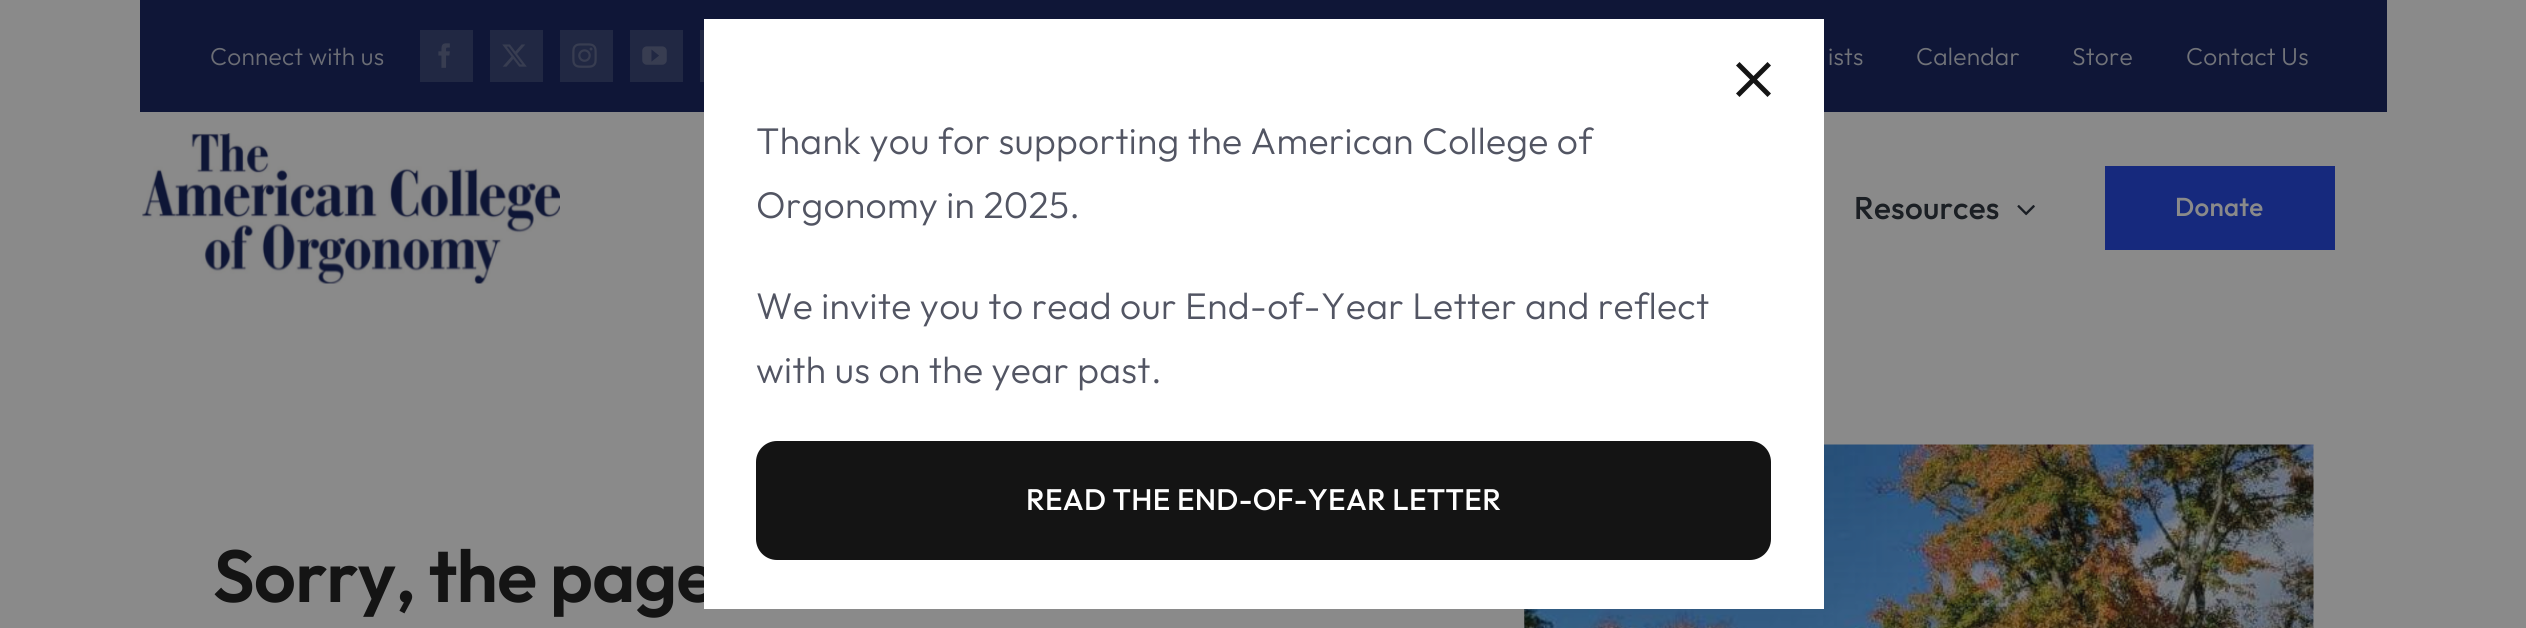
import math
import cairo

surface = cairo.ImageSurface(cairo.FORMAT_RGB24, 2526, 628)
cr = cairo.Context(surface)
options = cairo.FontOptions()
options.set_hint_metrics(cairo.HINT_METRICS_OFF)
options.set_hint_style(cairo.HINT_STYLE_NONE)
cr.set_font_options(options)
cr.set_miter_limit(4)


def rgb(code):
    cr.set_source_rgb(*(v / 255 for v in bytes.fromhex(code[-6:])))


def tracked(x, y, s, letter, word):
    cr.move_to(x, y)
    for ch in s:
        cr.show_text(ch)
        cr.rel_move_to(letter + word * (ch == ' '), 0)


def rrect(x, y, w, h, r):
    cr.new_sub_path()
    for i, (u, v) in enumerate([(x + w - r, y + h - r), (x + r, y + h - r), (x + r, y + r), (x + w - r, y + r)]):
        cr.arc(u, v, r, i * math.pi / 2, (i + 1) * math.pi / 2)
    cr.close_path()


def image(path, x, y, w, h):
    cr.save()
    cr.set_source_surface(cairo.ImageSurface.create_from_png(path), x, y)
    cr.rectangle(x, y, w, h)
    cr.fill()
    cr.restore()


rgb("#8a8a8a")
cr.paint()
rgb("#0f1637")
cr.rectangle(140, 0, 2247, 112)
cr.fill()
rgb("#212843")
cr.rectangle(420, 30, 53, 52)
cr.fill()
image("img/1.png", 438, 43, 12, 25)
cr.rectangle(490, 30, 53, 52)
cr.fill()
image("img/2.png", 502, 44, 25, 23)
cr.rectangle(560, 30, 53, 52)
cr.fill()
image("img/3.png", 572, 43, 25, 25)
cr.rectangle(630, 30, 53, 52)
cr.fill()
image("img/4.png", 642, 46, 25, 19)
cr.rectangle(700, 30, 4, 52)
cr.fill()
image("img/5.png", 142, 133, 418, 151)
image("img/6.png", 2017, 205, 18, 11)
rgb("#16297d")
cr.rectangle(2105, 166, 230, 84)
cr.fill()
image("img/7.png", 1524, 444, 790, 184)
cr.select_font_face("Outfit Light")
cr.set_font_size(24.5)
rgb("#6b6d75")
tracked(210, 65, "Connect with us", 0.25, 0)
rgb("#717379")
for x, y, s in [
    (1828, 65, "ists"),
    (1916, 65, "Calendar"),
    (2072, 65, "Store"),
    (2186, 65, "Contact Us"),
]:
    tracked(x, y, s, 0.25, 0)
cr.select_font_face("Outfit Medium")
cr.set_font_size(31.5)
rgb("#1b1f24")
tracked(1854, 219, "Resources", 0.25, 0)
cr.set_font_size(26)
rgb("#8a8a8a")
tracked(2175, 216, "Donate", 0.25, 0)
cr.select_font_face("Outfit SemiBold")
cr.set_font_size(73.5)
rgb("#141414")
tracked(213, 602, "Sorry, the page", -0.75, 0)
rgb("#ffffff")
cr.rectangle(704, 19, 1120, 590)
cr.fill()
rgb("#141414")
cr.new_path()
cr.move_to(1771, 65.5)
cr.line_to(1757, 79.5)
cr.line_to(1771, 93.5)
cr.line_to(1767.5, 97)
cr.line_to(1753.5, 83)
cr.line_to(1739.5, 97)
cr.line_to(1736, 93.5)
cr.line_to(1750, 79.5)
cr.line_to(1736, 65.5)
cr.line_to(1739.5, 62)
cr.line_to(1753.5, 76)
cr.line_to(1767.5, 62)
cr.close_path()
cr.fill()
cr.select_font_face("Outfit Light")
cr.set_font_size(37.2)
rgb("#525563")
for x, y, s in [
    (756, 154, "Thank you for supporting the American College of"),
    (756, 218, "Orgonomy in 2025."),
    (756, 319, "We invite you to read our End-of-Year Letter and reflect"),
    (756, 383, "with us on the year past."),
]:
    tracked(x, y, s, 0.3, 0)
rgb("#141414")
rrect(756, 441, 1015, 119, 21)
cr.fill()
cr.select_font_face("Outfit Medium")
cr.set_font_size(29.75)
rgb("#ffffff")
tracked(1026, 510, "READ THE END-OF-YEAR LETTER", 0.3, 0)
surface.write_to_png("page.png")
